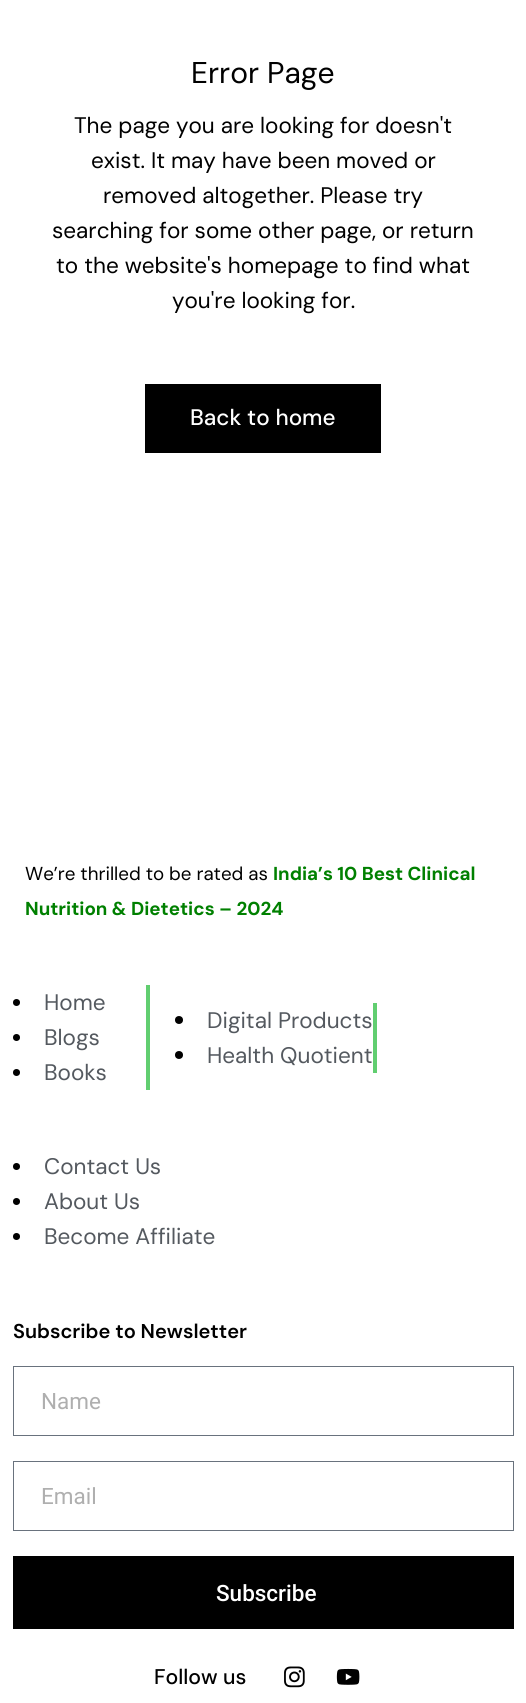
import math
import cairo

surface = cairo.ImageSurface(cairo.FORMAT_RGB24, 526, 1703)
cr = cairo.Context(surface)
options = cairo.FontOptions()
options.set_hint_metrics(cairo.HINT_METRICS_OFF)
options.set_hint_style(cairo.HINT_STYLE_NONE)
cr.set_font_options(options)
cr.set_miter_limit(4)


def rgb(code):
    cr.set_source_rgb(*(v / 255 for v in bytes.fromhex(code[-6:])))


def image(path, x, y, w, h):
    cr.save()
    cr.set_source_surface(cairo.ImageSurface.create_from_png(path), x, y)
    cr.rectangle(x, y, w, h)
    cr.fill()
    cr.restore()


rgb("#ffffff")
cr.paint()
rgb("#000000")
cr.rectangle(145, 384, 236, 69)
cr.fill()
rgb("#61ce70")
cr.rectangle(146, 985, 4, 105)
cr.fill()
rgb("#000000")
cr.arc(16.5, 1002.5, 3.5, 0, 2 * math.pi)
cr.fill()
cr.arc(16.5, 1037.5, 3.5, 0, 2 * math.pi)
cr.fill()
cr.arc(16.5, 1072.5, 3.5, 0, 2 * math.pi)
cr.fill()
rgb("#61ce70")
cr.rectangle(373, 1003, 4, 70)
cr.fill()
rgb("#000000")
cr.arc(179, 1020, 4, 0, 2 * math.pi)
cr.fill()
cr.arc(179, 1055, 4, 0, 2 * math.pi)
cr.fill()
cr.arc(16.5, 1166.5, 3.5, 0, 2 * math.pi)
cr.fill()
cr.arc(16.5, 1201.5, 3.5, 0, 2 * math.pi)
cr.fill()
cr.arc(16.5, 1236.5, 3.5, 0, 2 * math.pi)
cr.fill()
cr.rectangle(13.5, 1366.5, 500, 69)
rgb("#69727d")
cr.set_line_width(1)
cr.stroke()
cr.rectangle(13.5, 1461.5, 500, 69)
cr.stroke()
rgb("#000000")
cr.rectangle(13, 1556, 501, 73)
cr.fill()
image("img/1.png", 284, 1666, 21, 22)
image("img/2.png", 336, 1668, 24, 17)
cr.select_font_face("DM Sans")
cr.set_font_size(30)
cr.move_to(191, 83)
cr.show_text("Error Page")
cr.set_font_size(22.5)
for x, y, s in [
    (74, 133, "The page you are looking for doesn't"),
    (91, 168, "exist. It may have been moved or"),
    (103, 203, "removed altogether. Please try"),
    (52, 238, "searching for some other page, or return"),
    (56, 273, "to the website's homepage to find what"),
    (172, 308, "you're looking for."),
]:
    cr.move_to(x, y)
    cr.show_text(s)
cr.select_font_face("DM Sans Medium")
rgb("#ffffff")
cr.move_to(190, 425)
cr.show_text("Back to home")
cr.select_font_face("DM Sans")
cr.set_font_size(18.75)
rgb("#000000")
cr.move_to(25, 880)
cr.show_text("We’re thrilled to be rated as")
cr.select_font_face("DM Sans", cairo.FONT_SLANT_NORMAL, cairo.FONT_WEIGHT_BOLD)
rgb("#008000")
cr.move_to(273, 880)
cr.show_text("India’s 10 Best Clinical")
cr.move_to(25, 915)
cr.show_text("Nutrition & Dietetics – 2024")
cr.select_font_face("DM Sans")
cr.set_font_size(22.5)
rgb("#54595f")
for x, y, s in [
    (44, 1010, "Home"),
    (44, 1045, "Blogs"),
    (44, 1080, "Books"),
    (207, 1028, "Digital Products"),
    (207, 1063, "Health Quotient"),
    (44, 1174, "Contact Us"),
    (44, 1209, "About Us"),
    (44, 1244, "Become Affiliate"),
]:
    cr.move_to(x, y)
    cr.show_text(s)
cr.select_font_face("DM Sans SemiBold")
cr.set_font_size(20)
rgb("#000000")
cr.move_to(13, 1338)
cr.show_text("Subscribe to Newsletter")
cr.select_font_face("Roboto")
cr.set_font_size(22.5)
rgb("#afafaf")
cr.move_to(41, 1409)
cr.show_text("Name")
cr.move_to(41, 1504)
cr.show_text("Email")
cr.select_font_face("Roboto Medium")
rgb("#ffffff")
cr.move_to(216, 1601)
cr.show_text("Subscribe")
cr.select_font_face("DM Sans Medium")
cr.set_font_size(21.25)
rgb("#000000")
cr.move_to(154, 1684)
cr.show_text("Follow us")
surface.write_to_png("page.png")
